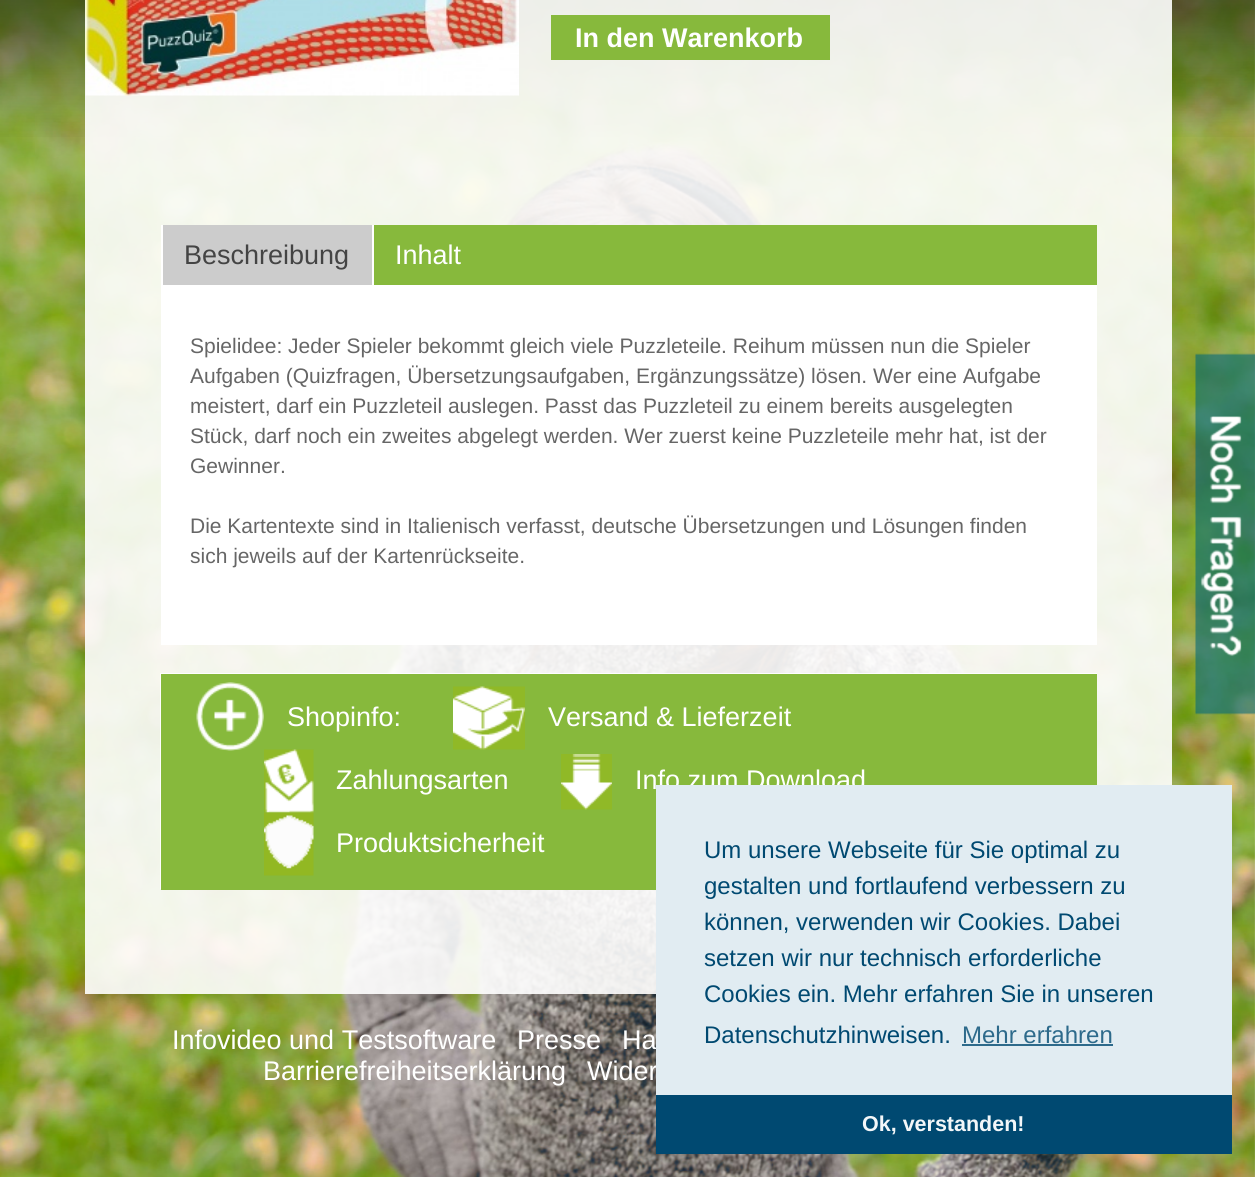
import math
import cairo

surface = cairo.ImageSurface(cairo.FORMAT_RGB24, 1255, 1177)
cr = cairo.Context(surface)
options = cairo.FontOptions()
options.set_hint_metrics(cairo.HINT_METRICS_OFF)
options.set_hint_style(cairo.HINT_STYLE_NONE)
cr.set_font_options(options)
cr.set_miter_limit(4)


def rgb(code):
    cr.set_source_rgb(*(v / 255 for v in bytes.fromhex(code[-6:])))


def image(path, x, y, w, h):
    cr.save()
    cr.set_source_surface(cairo.ImageSurface.create_from_png(path), x, y)
    cr.rectangle(x, y, w, h)
    cr.fill()
    cr.restore()


rgb("#ffffff")
cr.paint()
image("img/1.png", 0, 0, 1255, 1177)
image("img/2.png", 0, 0, 1255, 137)
cr.set_source_rgba(1, 1, 1, 0.9)
cr.rectangle(85, 0, 1087, 994)
cr.fill()
image("img/3.png", 85, 0, 434, 96)
rgb("#87b93c")
cr.rectangle(551, 15, 279, 45)
cr.rectangle(374, 225, 723, 60)
cr.fill()
rgb("#cccccc")
cr.rectangle(163, 225, 209, 60)
cr.fill()
rgb("#ffffff")
cr.rectangle(161, 225, 2, 62)
cr.rectangle(372, 225, 2, 62)
cr.rectangle(161, 285, 936, 360)
cr.fill()
cr.set_source_rgba(1, 1, 1, 0.9)
cr.rectangle(160, 673, 937, 216)
cr.fill()
rgb("#87b93c")
cr.rectangle(161, 674, 936, 216)
cr.fill()
image("img/4.png", 196, 682, 68, 69)
image("img/5.png", 453, 686, 72, 64)
image("img/6.png", 264, 749, 50, 64)
image("img/7.png", 561, 754, 51, 56)
image("img/8.png", 264, 812, 50, 64)
image("img/9.png", 1195, 353, 60, 362)
image("img/10.png", 1201, 416, 40, 240)
rgb("#004971")
cr.rectangle(656, 1095, 576, 59)
cr.fill()
cr.select_font_face("Liberation Sans", cairo.FONT_SLANT_NORMAL, cairo.FONT_WEIGHT_BOLD)
cr.set_font_size(27)
rgb("#ffffff")
cr.move_to(575, 47)
cr.show_text("In den Warenkorb")
cr.select_font_face("Liberation Sans")
rgb("#444444")
cr.move_to(184, 264)
cr.show_text("Beschreibung")
rgb("#ffffff")
cr.move_to(395, 264)
cr.show_text("Inhalt")
cr.set_font_size(21)
rgb("#666666")
for x, y, s in [
    (190, 353, "Spielidee: Jeder Spieler bekommt gleich viele Puzzleteile. Reihum müssen nun die Spieler"),
    (190, 383, "Aufgaben (Quizfragen, Übersetzungsaufgaben, Ergänzungssätze) lösen. Wer eine Aufgabe"),
    (190, 413, "meistert, darf ein Puzzleteil auslegen. Passt das Puzzleteil zu einem bereits ausgelegten"),
    (190, 443, "Stück, darf noch ein zweites abgelegt werden. Wer zuerst keine Puzzleteile mehr hat, ist der"),
    (190, 473, "Gewinner."),
    (190, 533, "Die Kartentexte sind in Italienisch verfasst, deutsche Übersetzungen und Lösungen finden"),
    (190, 563, "sich jeweils auf der Kartenrückseite."),
]:
    cr.move_to(x, y)
    cr.show_text(s)
cr.set_font_size(27)
rgb("#ffffff")
for x, y, s in [
    (287, 726, "Shopinfo:"),
    (548, 726, "Versand & Lieferzeit"),
    (336, 789, "Zahlungsarten"),
    (635, 789, "Info zum Download"),
    (336, 852, "Produktsicherheit"),
    (172, 1049, "Infovideo und Testsoftware"),
    (517, 1049, "Presse"),
    (622, 1049, "Ha"),
    (263, 1080, "Barrierefreiheitserklärung"),
    (587, 1080, "Wider"),
]:
    cr.move_to(x, y)
    cr.show_text(s)
rgb("#e1ecf2")
cr.rectangle(656, 785, 576, 310)
cr.fill()
cr.set_font_size(24)
rgb("#004971")
for x, y, s in [
    (704, 858, "Um unsere Webseite für Sie optimal zu"),
    (704, 894, "gestalten und fortlaufend verbessern zu"),
    (704, 930, "können, verwenden wir Cookies. Dabei"),
    (704, 966, "setzen wir nur technisch erforderliche"),
    (704, 1002, "Cookies ein. Mehr erfahren Sie in unseren"),
    (704, 1043, "Datenschutzhinweisen."),
]:
    cr.move_to(x, y)
    cr.show_text(s)
rgb("#2d6a8b")
cr.move_to(962, 1043)
cr.show_text("Mehr erfahren")
cr.rectangle(962, 1044, 151, 2)
cr.fill()
cr.select_font_face("Liberation Sans", cairo.FONT_SLANT_NORMAL, cairo.FONT_WEIGHT_BOLD)
cr.set_font_size(21.5)
rgb("#f3f7f9")
cr.move_to(862, 1131)
cr.show_text("Ok, verstanden!")
surface.write_to_png("page.png")
